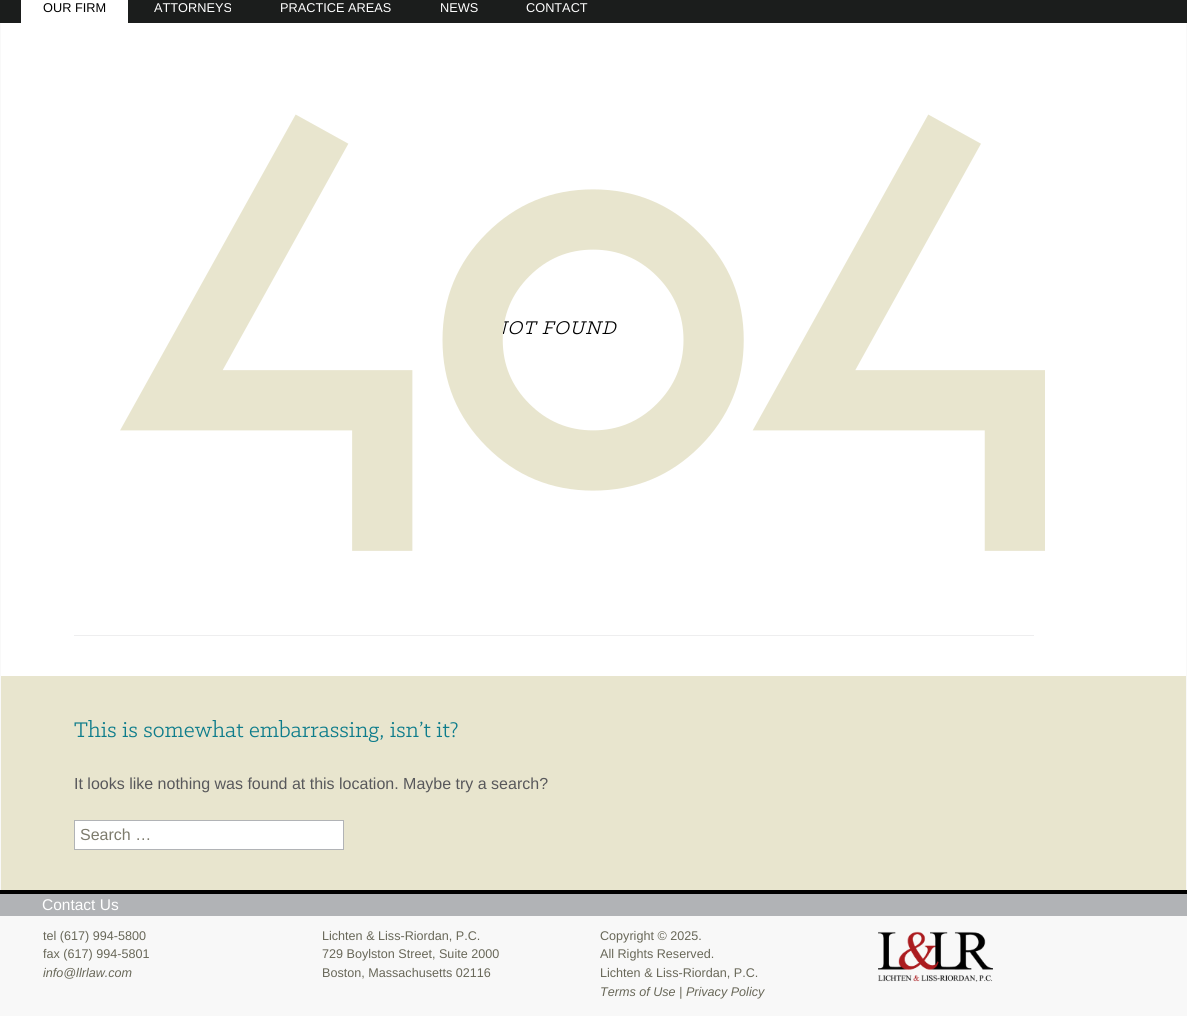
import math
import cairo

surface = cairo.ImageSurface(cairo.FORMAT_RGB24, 1187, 1016)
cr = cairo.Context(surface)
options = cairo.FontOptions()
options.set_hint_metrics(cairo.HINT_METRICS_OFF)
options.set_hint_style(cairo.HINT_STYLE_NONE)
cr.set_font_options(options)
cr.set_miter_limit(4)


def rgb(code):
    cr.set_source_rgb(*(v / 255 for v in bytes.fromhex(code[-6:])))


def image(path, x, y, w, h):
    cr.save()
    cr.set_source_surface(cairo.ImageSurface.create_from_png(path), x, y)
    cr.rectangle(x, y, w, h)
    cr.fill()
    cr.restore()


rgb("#ffffff")
cr.paint()
for x, y, w, h, color in [
    (0, 0, 1187, 23, "#1b1d1c"),
    (21, 0, 107, 23, "#ffffff"),
    (1186, 23, 1, 867, "#f9f9f9"),
    (0, 23, 1, 867, "#f9f9f9"),
    (74, 635, 960, 1, "#eeeeef"),
]:
    rgb(color)
    cr.rectangle(x, y, w, h)
    cr.fill()
image("img/2.png", 502, 321, 115, 14)
image("img/1.png", 120, 114, 925, 437)
rgb("#e8e5ce")
cr.rectangle(1, 676, 1185, 214)
cr.fill()
image("img/3.png", 74, 720, 384, 22)
rgb("#ffffff")
cr.rectangle(74.5, 820.5, 269, 29)
cr.fill_preserve()
rgb("#b1b3b6")
cr.set_line_width(1)
cr.stroke()
for x, y, w, h, color in [
    (0, 916, 1187, 100, "#f8f8f8"),
    (0, 890, 1187, 4, "#000000"),
    (0, 894, 1187, 22, "#b1b3b6"),
]:
    rgb(color)
    cr.rectangle(x, y, w, h)
    cr.fill()
image("img/4.png", 878, 931, 115, 51)
cr.select_font_face("Liberation Sans")
cr.set_font_size(12.75)
rgb("#000000")
cr.move_to(43, 12)
cr.show_text("OUR FIRM")
rgb("#ffffff")
for x, y, s in [
    (154, 12, "ATTORNEYS"),
    (280, 12, "PRACTICE AREAS"),
    (440, 12, "NEWS"),
    (526, 12, "CONTACT"),
]:
    cr.move_to(x, y)
    cr.show_text(s)
cr.set_font_size(16)
rgb("#58585b")
cr.move_to(74, 789)
cr.show_text("It looks like nothing was found at this location. Maybe try a search?")
rgb("#7d7b6d")
cr.move_to(80, 840)
cr.show_text("Search …")
cr.set_font_size(15.5)
rgb("#ffffff")
cr.move_to(42, 910)
cr.show_text("Contact Us")
cr.set_font_size(12.6)
rgb("#686758")
cr.move_to(43, 940)
cr.show_text("tel (617) 994-5800")
cr.move_to(43, 958)
cr.show_text("fax (617) 994-5801")
cr.select_font_face("Liberation Sans", cairo.FONT_SLANT_ITALIC)
cr.move_to(43, 977)
cr.show_text("info@llrlaw.com")
cr.select_font_face("Liberation Sans")
for x, y, s in [
    (322, 940, "Lichten & Liss-Riordan, P.C."),
    (322, 958, "729 Boylston Street, Suite 2000"),
    (322, 977, "Boston, Massachusetts 02116"),
    (600, 940, "Copyright © 2025."),
    (600, 958, "All Rights Reserved."),
    (600, 977, "Lichten & Liss-Riordan, P.C."),
]:
    cr.move_to(x, y)
    cr.show_text(s)
cr.select_font_face("Liberation Sans", cairo.FONT_SLANT_ITALIC)
cr.move_to(600, 996)
cr.show_text("Terms of Use | Privacy Policy")
surface.write_to_png("page.png")
